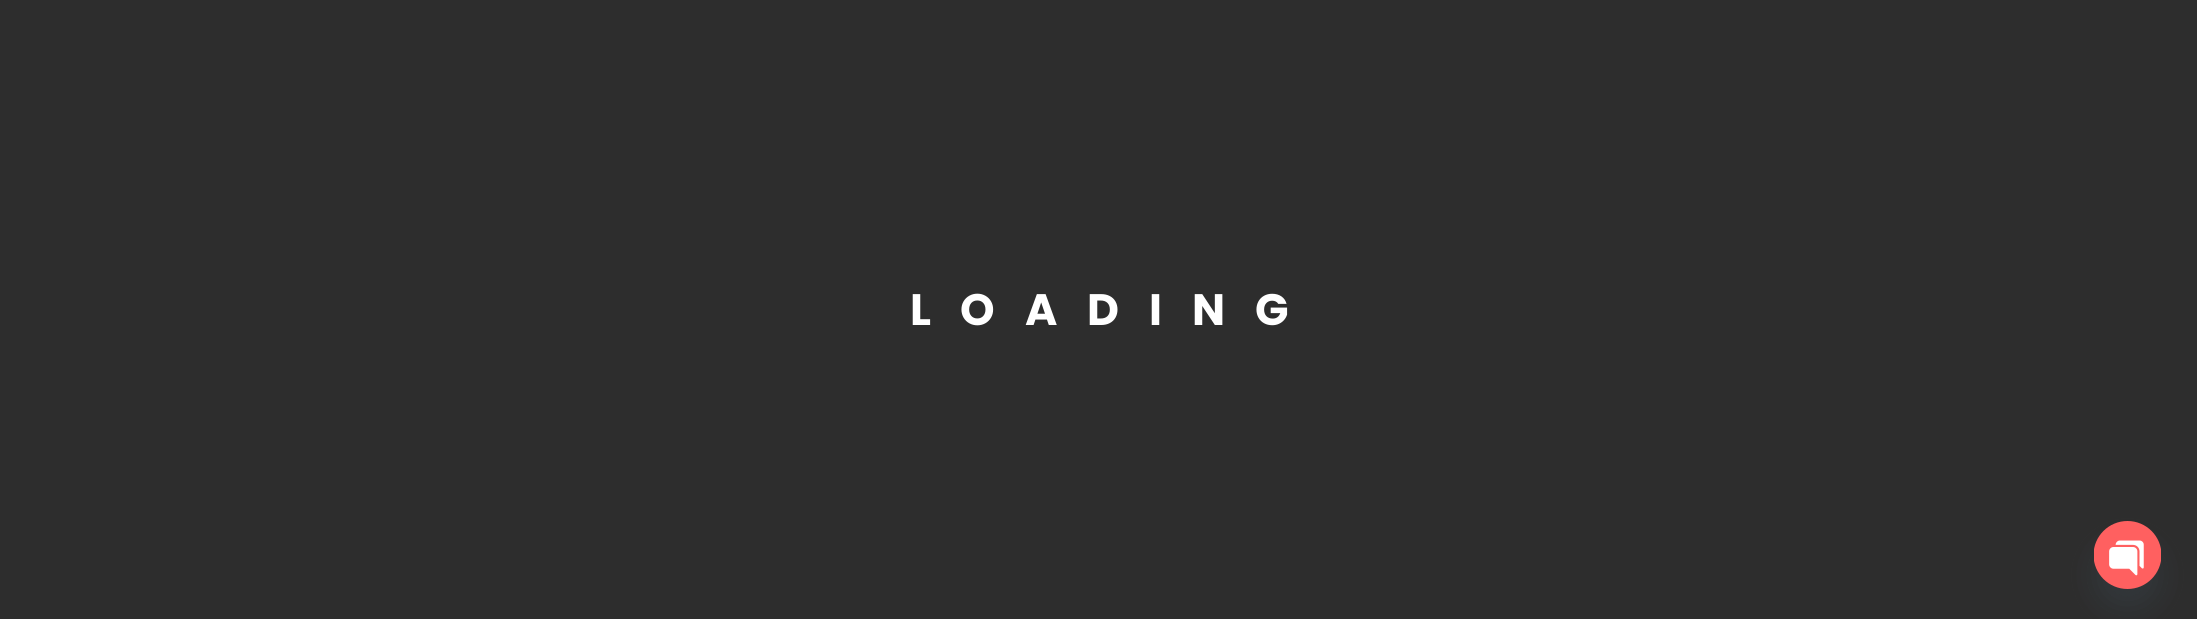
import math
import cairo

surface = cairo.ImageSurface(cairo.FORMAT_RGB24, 2197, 619)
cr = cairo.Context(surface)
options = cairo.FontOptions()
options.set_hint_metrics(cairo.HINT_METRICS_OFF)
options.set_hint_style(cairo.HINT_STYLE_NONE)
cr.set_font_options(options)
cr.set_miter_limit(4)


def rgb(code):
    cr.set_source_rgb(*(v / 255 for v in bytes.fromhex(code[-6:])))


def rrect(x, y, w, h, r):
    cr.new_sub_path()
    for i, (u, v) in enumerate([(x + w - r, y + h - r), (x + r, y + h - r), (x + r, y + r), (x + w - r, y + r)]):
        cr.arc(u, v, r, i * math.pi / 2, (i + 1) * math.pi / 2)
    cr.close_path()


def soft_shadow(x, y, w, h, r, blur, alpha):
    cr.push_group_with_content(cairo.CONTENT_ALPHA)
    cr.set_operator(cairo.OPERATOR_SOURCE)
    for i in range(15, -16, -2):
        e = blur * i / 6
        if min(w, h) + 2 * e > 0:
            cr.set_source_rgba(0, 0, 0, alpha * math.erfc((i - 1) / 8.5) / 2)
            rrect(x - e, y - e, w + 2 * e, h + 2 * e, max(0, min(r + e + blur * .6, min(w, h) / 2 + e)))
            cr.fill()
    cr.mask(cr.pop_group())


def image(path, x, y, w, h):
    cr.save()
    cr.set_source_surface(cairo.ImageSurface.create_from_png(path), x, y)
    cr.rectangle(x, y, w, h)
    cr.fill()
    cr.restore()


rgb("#2d2d2d")
cr.paint()
rgb("#49687e")
soft_shadow(2094, 541, 67, 68, 33.5, 15, 0.16)
image("img/1.png", 2094, 521, 67, 68)
cr.select_font_face("Poppins", cairo.FONT_SLANT_NORMAL, cairo.FONT_WEIGHT_BOLD)
cr.set_font_size(44)
rgb("#ffffff")
for x, y, s in [
    (910, 325, "L"),
    (960, 325, "O"),
    (1025, 325, "A"),
    (1087, 325, "D"),
    (1149, 325, "I"),
    (1192, 325, "N"),
    (1255, 325, "G"),
]:
    cr.move_to(x, y)
    cr.show_text(s)
surface.write_to_png("page.png")
